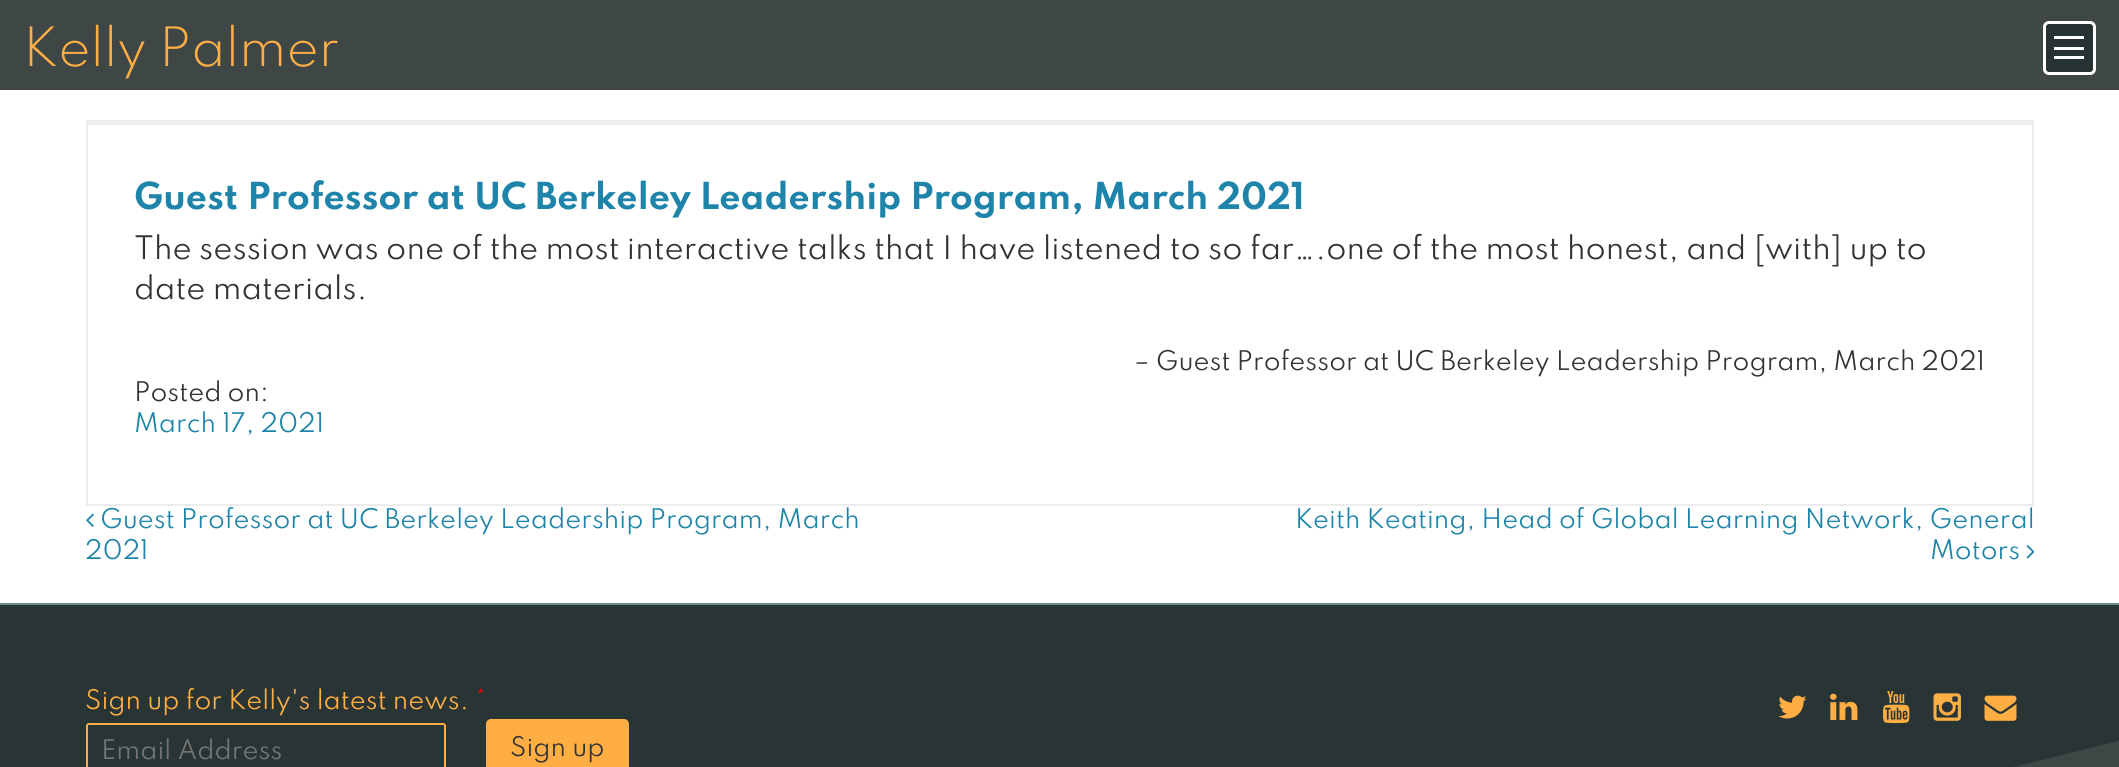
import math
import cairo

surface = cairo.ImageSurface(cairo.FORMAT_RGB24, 2119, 767)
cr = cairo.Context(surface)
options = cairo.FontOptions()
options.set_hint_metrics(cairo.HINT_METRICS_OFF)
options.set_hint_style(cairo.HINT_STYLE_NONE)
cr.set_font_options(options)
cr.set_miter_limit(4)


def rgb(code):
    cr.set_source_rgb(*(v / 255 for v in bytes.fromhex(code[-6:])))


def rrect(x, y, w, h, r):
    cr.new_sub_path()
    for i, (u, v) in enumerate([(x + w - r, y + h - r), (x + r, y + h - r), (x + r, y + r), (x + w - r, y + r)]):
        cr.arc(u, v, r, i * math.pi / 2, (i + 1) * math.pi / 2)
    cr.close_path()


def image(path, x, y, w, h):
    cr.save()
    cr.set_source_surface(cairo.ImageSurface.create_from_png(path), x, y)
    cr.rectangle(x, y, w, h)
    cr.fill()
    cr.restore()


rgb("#ffffff")
cr.paint()
rgb("#3f4646")
cr.rectangle(0, 0, 2119, 90)
cr.fill()
rgb("#273233")
rrect(2044.5, 22.5, 50, 51, 4.5)
cr.fill_preserve()
rgb("#ffffff")
cr.set_line_width(3)
cr.stroke()
for x, y, w, h, color in [
    (2054, 36, 30, 3, "#ffffff"),
    (2054, 47, 30, 3, "#ffffff"),
    (2054, 56, 30, 3, "#ffffff"),
    (0, 603, 2119, 2, "#6c8b8b"),
]:
    rgb(color)
    cr.rectangle(x, y, w, h)
    cr.fill()
cr.rectangle(87, 121, 1946, 384)
rgb("#ececec")
cr.set_line_width(2)
cr.stroke()
rgb("#f1f1f1")
cr.rectangle(87, 122, 1946, 3)
cr.fill()
image("img/1.png", 86, 513, 8, 14)
image("img/2.png", 2026, 545, 8, 14)
image("img/3.png", 0, 605, 2119, 162)
rrect(87, 724, 358, 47, 2)
rgb("#ffae44")
cr.stroke()
rrect(487, 720, 141, 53, 4)
cr.fill_preserve()
cr.stroke()
image("img/4.png", 1778, 695, 29, 24)
image("img/5.png", 1830, 693, 28, 27)
image("img/6.png", 1883, 691, 27, 33)
image("img/7.png", 1933, 693, 28, 28)
image("img/8.png", 1984, 695, 33, 26)
cr.select_font_face("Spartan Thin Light")
cr.set_font_size(48)
cr.move_to(23, 66)
cr.show_text("Kelly Palmer")
cr.select_font_face("Spartan Thin", cairo.FONT_SLANT_NORMAL, cairo.FONT_WEIGHT_BOLD)
cr.set_font_size(33)
rgb("#1e84a9")
cr.move_to(134, 209)
cr.show_text("Guest Professor at UC Berkeley Leadership Program, March 2021")
cr.select_font_face("Spartan Thin")
cr.set_font_size(28.8)
rgb("#333333")
cr.move_to(134, 259)
cr.show_text("The session was one of the most interactive talks that I have listened to so far….one of the most honest, and [with] up to")
cr.move_to(134, 299)
cr.show_text("date materials.")
cr.set_font_size(24)
cr.move_to(1134, 370)
cr.show_text("– Guest Professor at UC Berkeley Leadership Program, March 2021")
cr.move_to(134, 401)
cr.show_text("Posted on:")
rgb("#1e84a9")
for x, y, s in [
    (134, 432, "March 17, 2021"),
    (100, 528, "Guest Professor at UC Berkeley Leadership Program, March"),
    (85, 559, "2021"),
    (1295, 528, "Keith Keating, Head of Global Learning Network, General"),
    (1930, 559, "Motors"),
]:
    cr.move_to(x, y)
    cr.show_text(s)
rgb("#ffae44")
cr.move_to(85, 709)
cr.show_text("Sign up for Kelly's latest news.")
rgb("#ff0000")
cr.move_to(475, 709)
cr.show_text("*")
rgb("#757575")
cr.move_to(101, 759)
cr.show_text("Email Address")
rgb("#333333")
cr.move_to(510, 756)
cr.show_text("Sign up")
surface.write_to_png("page.png")
